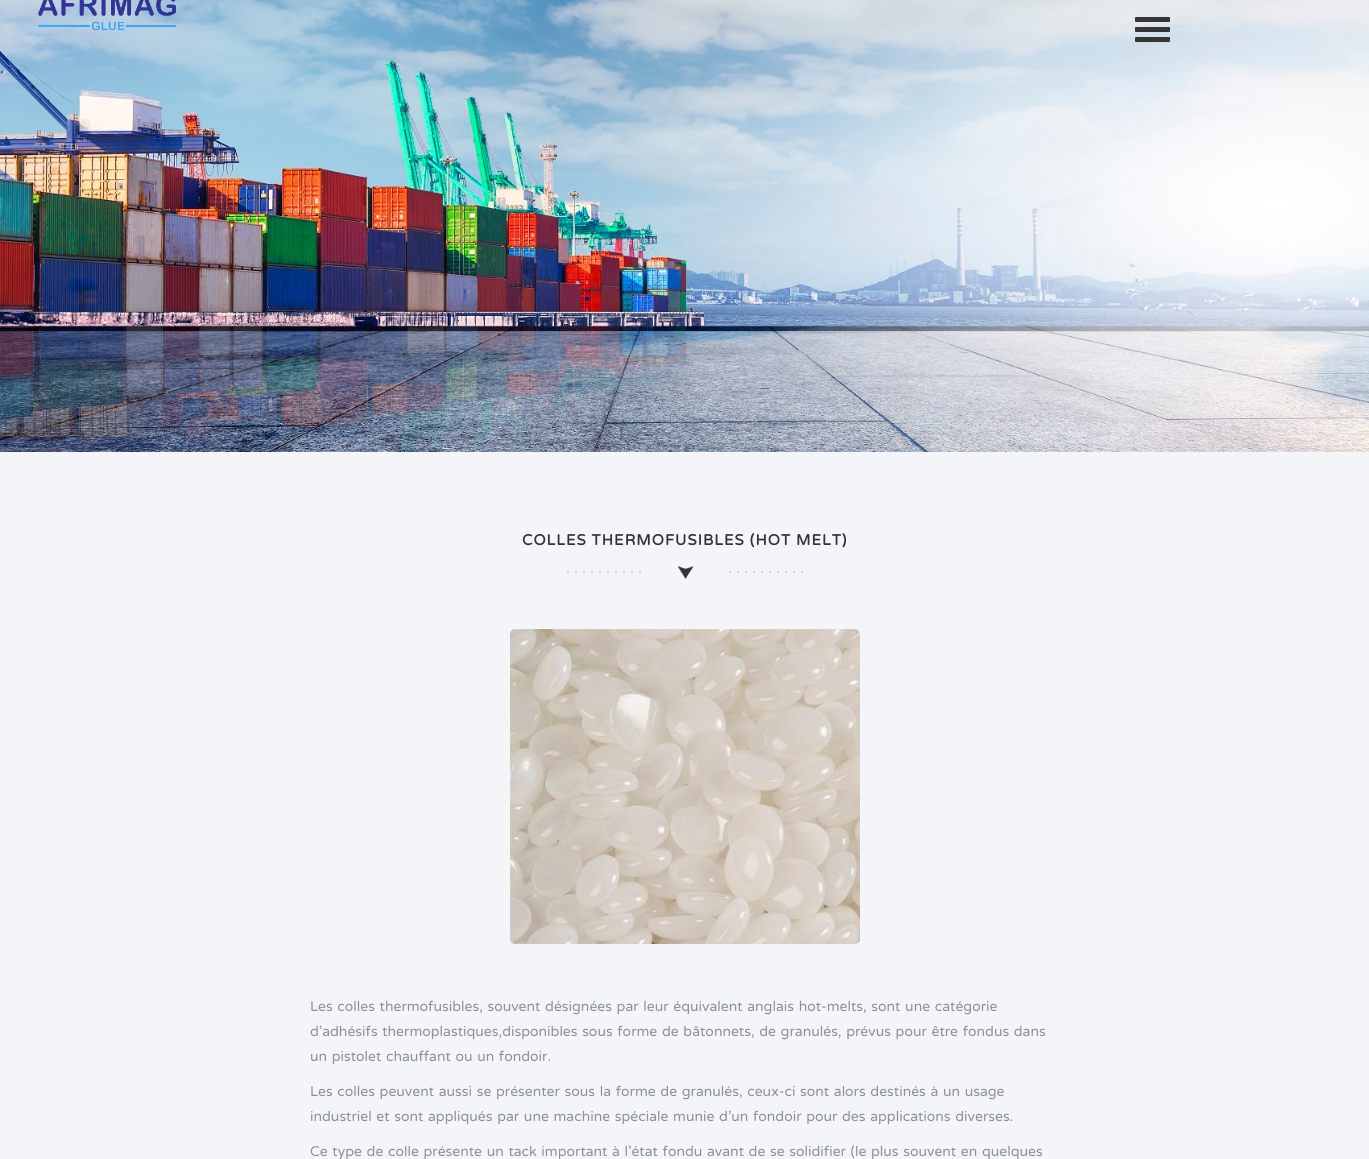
import math
import cairo

surface = cairo.ImageSurface(cairo.FORMAT_RGB24, 1369, 1159)
cr = cairo.Context(surface)
options = cairo.FontOptions()
options.set_hint_metrics(cairo.HINT_METRICS_OFF)
options.set_hint_style(cairo.HINT_STYLE_NONE)
cr.set_font_options(options)
cr.set_miter_limit(4)


def rgb(code):
    cr.set_source_rgb(*(v / 255 for v in bytes.fromhex(code[-6:])))


def tracked(x, y, s, letter, word):
    cr.move_to(x, y)
    for ch in s:
        cr.show_text(ch)
        cr.rel_move_to(letter + word * (ch == ' '), 0)


def rrect(x, y, w, h, r):
    cr.new_sub_path()
    for i, (u, v) in enumerate([(x + w - r, y + h - r), (x + r, y + h - r), (x + r, y + r), (x + w - r, y + r)]):
        cr.arc(u, v, r, i * math.pi / 2, (i + 1) * math.pi / 2)
    cr.close_path()


def image(path, x, y, w, h):
    cr.save()
    cr.set_source_surface(cairo.ImageSurface.create_from_png(path), x, y)
    cr.rectangle(x, y, w, h)
    cr.fill()
    cr.restore()


rgb("#ffffff")
cr.paint()
image("img/1.png", 0, 0, 1369, 452)
image("img/2.png", 38, 0, 139, 31)
rgb("#353535")
rrect(1135, 27, 35, 5, 1)
cr.fill()
rrect(1135, 17, 35, 5, 1)
cr.fill()
rrect(1135, 37, 35, 5, 1)
cr.fill()
rgb("#f3f5f8")
cr.rectangle(0, 452, 1369, 707)
cr.fill()
image("img/3.png", 567, 566, 236, 13)
image("img/4.png", 510, 629, 350, 315)
cr.select_font_face("Varela Round", cairo.FONT_SLANT_NORMAL, cairo.FONT_WEIGHT_BOLD)
cr.set_font_size(15)
rgb("#353535")
tracked(522, 545, "COLLES THERMOFUSIBLES (HOT MELT)", 1, 0)
cr.select_font_face("Varela Round")
cr.set_font_size(14)
rgb("#8c9398")
for x, y, s in [
    (310, 1011, "Les colles thermofusibles, souvent désignées par leur équivalent anglais hot-melts, sont une catégorie"),
    (310, 1036, "d’adhésifs thermoplastiques,disponibles sous forme de bâtonnets, de granulés, prévus pour être fondus dans"),
    (310, 1061, "un pistolet chauffant ou un fondoir."),
    (310, 1096, "Les colles peuvent aussi se présenter sous la forme de granulés, ceux-ci sont alors destinés à un usage"),
    (310, 1121, "industriel et sont appliqués par une machine spéciale munie d’un fondoir pour des applications diverses."),
    (310, 1156, "Ce type de colle présente un tack important à l’état fondu avant de se solidifier (le plus souvent en quelques"),
]:
    tracked(x, y, s, 0, 1)
surface.write_to_png("page.png")
